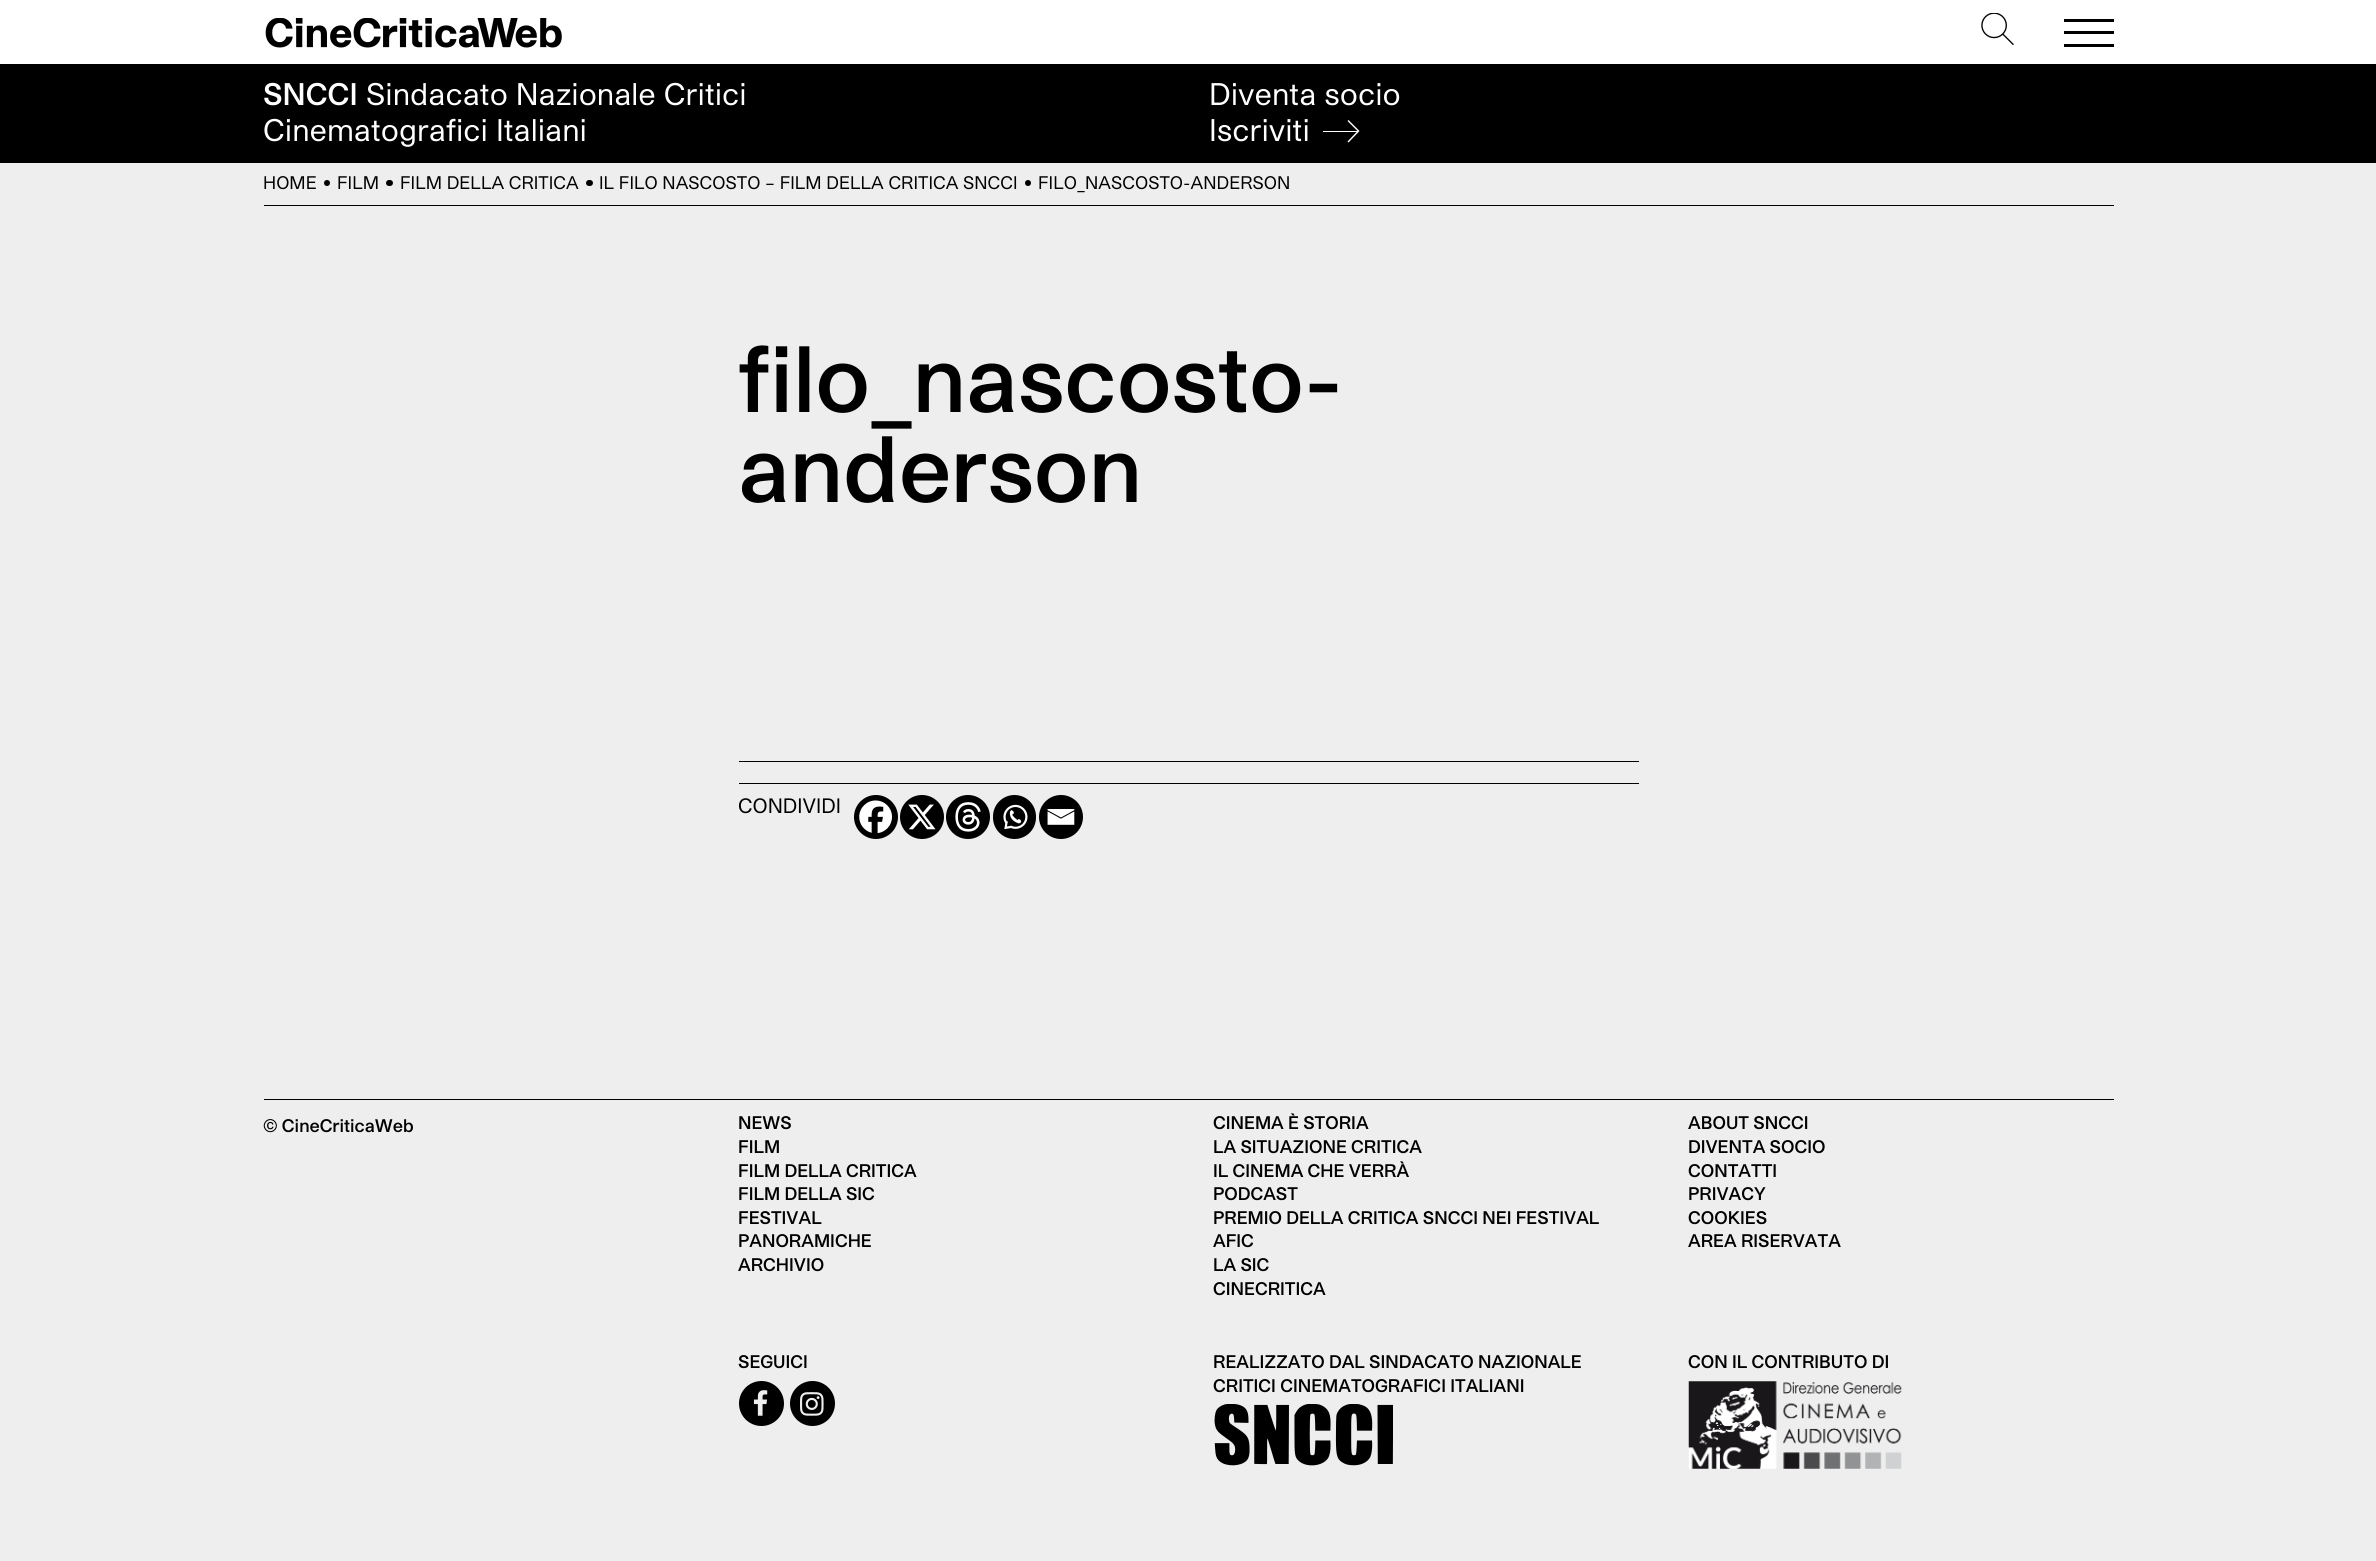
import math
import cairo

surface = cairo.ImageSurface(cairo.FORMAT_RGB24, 2376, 1561)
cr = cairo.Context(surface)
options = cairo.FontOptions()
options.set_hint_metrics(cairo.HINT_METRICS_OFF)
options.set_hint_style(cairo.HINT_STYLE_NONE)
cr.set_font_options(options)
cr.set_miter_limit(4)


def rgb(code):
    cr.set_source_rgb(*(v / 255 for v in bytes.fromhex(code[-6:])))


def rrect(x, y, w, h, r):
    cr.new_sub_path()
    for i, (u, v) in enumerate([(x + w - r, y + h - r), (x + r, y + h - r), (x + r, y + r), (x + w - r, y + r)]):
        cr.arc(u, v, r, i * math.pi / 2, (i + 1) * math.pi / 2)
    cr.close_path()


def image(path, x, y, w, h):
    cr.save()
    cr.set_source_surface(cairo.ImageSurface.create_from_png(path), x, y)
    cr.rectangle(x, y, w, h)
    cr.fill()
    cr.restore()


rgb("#eeeeee")
cr.paint()
rgb("#ffffff")
cr.rectangle(0, 0, 2376, 64)
cr.fill()
image("img/1.png", 265, 18, 297, 30)
image("img/2.png", 1981, 13, 33, 32)
for x, y, w, h, color in [
    (2064, 19, 50, 3, "#000000"),
    (2064, 31, 50, 3, "#000000"),
    (2064, 44, 50, 3, "#000000"),
    (0, 64, 2376, 99, "#000000"),
]:
    rgb(color)
    cr.rectangle(x, y, w, h)
    cr.fill()
rgb("#ffffff")
cr.new_path()
cr.move_to(1348.5, 142.5)
cr.line_to(1347.5, 141.5)
cr.line_to(1357.5, 131)
cr.line_to(1347.5, 121)
cr.line_to(1348.5, 120)
cr.line_to(1359.5, 131)
cr.close_path()
cr.fill()
cr.rectangle(1323, 131, 35, 1)
cr.fill()
rgb("#000000")
cr.rectangle(264, 205, 1850, 1)
cr.fill()
cr.arc(327, 183, 3, 0, 2 * math.pi)
cr.fill()
rrect(386, 180, 7, 6, 3)
cr.fill()
rrect(586, 180, 7, 6, 3)
cr.fill()
cr.arc(1028, 183, 3, 0, 2 * math.pi)
cr.fill()
cr.rectangle(739, 761, 900, 1)
cr.fill()
cr.rectangle(739, 783, 900, 1)
cr.fill()
cr.arc(876, 817, 22, 0, 2 * math.pi)
cr.fill()
image("img/3.png", 859, 800, 33, 34)
cr.arc(922, 817, 22, 0, 2 * math.pi)
cr.fill()
image("img/4.png", 908, 804, 28, 26)
cr.arc(968, 817, 22, 0, 2 * math.pi)
cr.fill()
image("img/5.png", 955, 802, 26, 30)
rrect(993, 795, 43, 44, 21.5)
cr.fill()
image("img/6.png", 1003, 804, 25, 26)
cr.arc(1061, 817, 22, 0, 2 * math.pi)
cr.fill()
image("img/7.png", 1047, 809, 28, 16)
cr.rectangle(264, 1099, 1850, 1)
cr.fill()
cr.arc(761.5, 1403.5, 22.5, 0, 2 * math.pi)
cr.fill()
image("img/8.png", 753, 1390, 15, 26)
cr.arc(812.5, 1403.5, 22.5, 0, 2 * math.pi)
cr.fill()
image("img/9.png", 800, 1392, 24, 24)
image("img/10.png", 1214, 1404, 179, 62)
image("img/11.png", 1688, 1381, 214, 88)
cr.select_font_face("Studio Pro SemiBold")
cr.set_font_size(30)
rgb("#ffffff")
cr.move_to(263, 105)
cr.show_text("SNCCI")
cr.select_font_face("Studio Pro")
for x, y, s in [
    (366, 105, "Sindacato Nazionale Critici"),
    (263, 141, "Cinematografici Italiani"),
    (1209, 105, "Diventa socio"),
    (1209, 141, "Iscriviti"),
]:
    cr.move_to(x, y)
    cr.show_text(s)
cr.set_font_size(17.5)
rgb("#000000")
for x, y, s in [
    (263, 189, "HOME"),
    (337, 189, "FILM"),
    (400, 189, "FILM DELLA CRITICA"),
    (599, 189, "IL FILO NASCOSTO – FILM DELLA CRITICA SNCCI"),
    (1038, 189, "FILO_NASCOSTO-ANDERSON"),
]:
    cr.move_to(x, y)
    cr.show_text(s)
cr.select_font_face("Studio Pro SemiBold")
cr.set_font_size(90)
cr.move_to(738, 412)
cr.show_text("filo_nascosto-")
cr.move_to(738, 502)
cr.show_text("anderson")
cr.select_font_face("Studio Pro")
cr.set_font_size(20)
cr.move_to(738, 813)
cr.show_text("CONDIVIDI")
cr.select_font_face("Studio Pro SemiBold")
cr.set_font_size(17.5)
for x, y, s in [
    (263, 1132, "© CineCriticaWeb"),
    (738, 1129, "NEWS"),
    (738, 1153, "FILM"),
    (738, 1177, "FILM DELLA CRITICA"),
    (738, 1200, "FILM DELLA SIC"),
    (738, 1224, "FESTIVAL"),
    (738, 1247, "PANORAMICHE"),
    (738, 1271, "ARCHIVIO"),
    (1213, 1129, "CINEMA È STORIA"),
    (1213, 1153, "LA SITUAZIONE CRITICA"),
    (1213, 1177, "IL CINEMA CHE VERRÀ"),
    (1213, 1200, "PODCAST"),
    (1213, 1224, "PREMIO DELLA CRITICA SNCCI NEI FESTIVAL"),
    (1213, 1247, "AFIC"),
    (1213, 1271, "LA SIC"),
    (1213, 1295, "CINECRITICA"),
    (1688, 1129, "ABOUT SNCCI"),
    (1688, 1153, "DIVENTA SOCIO"),
    (1688, 1177, "CONTATTI"),
    (1688, 1200, "PRIVACY"),
    (1688, 1224, "COOKIES"),
    (1688, 1247, "AREA RISERVATA"),
    (738, 1368, "SEGUICI"),
    (1213, 1368, "REALIZZATO DAL SINDACATO NAZIONALE"),
    (1213, 1392, "CRITICI CINEMATOGRAFICI ITALIANI"),
    (1688, 1368, "CON IL CONTRIBUTO DI"),
]:
    cr.move_to(x, y)
    cr.show_text(s)
surface.write_to_png("page.png")
